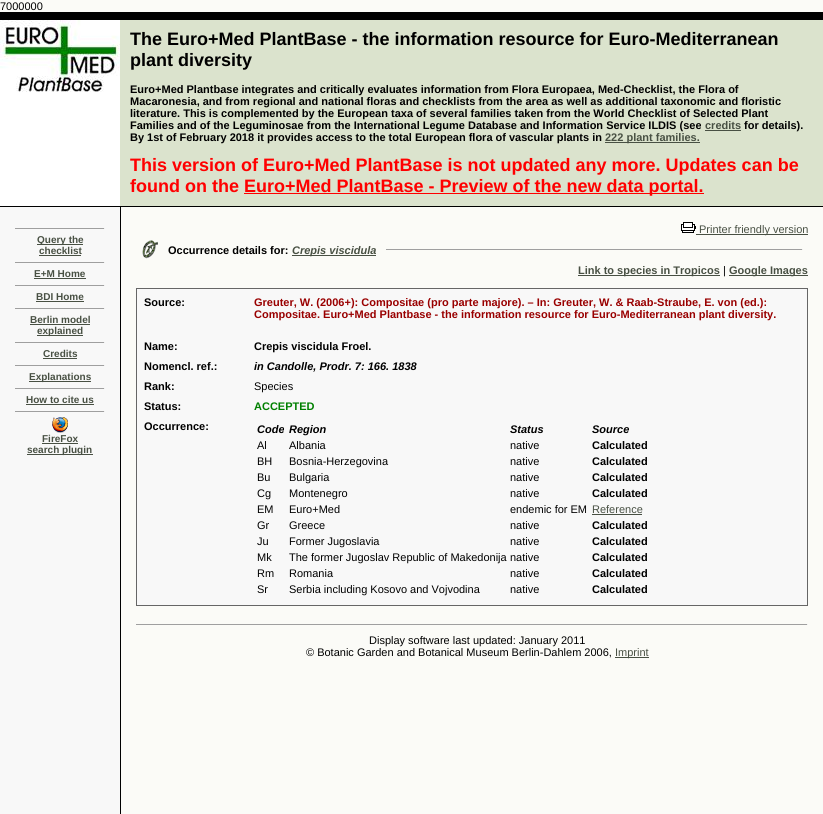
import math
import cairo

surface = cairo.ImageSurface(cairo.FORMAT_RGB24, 823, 814)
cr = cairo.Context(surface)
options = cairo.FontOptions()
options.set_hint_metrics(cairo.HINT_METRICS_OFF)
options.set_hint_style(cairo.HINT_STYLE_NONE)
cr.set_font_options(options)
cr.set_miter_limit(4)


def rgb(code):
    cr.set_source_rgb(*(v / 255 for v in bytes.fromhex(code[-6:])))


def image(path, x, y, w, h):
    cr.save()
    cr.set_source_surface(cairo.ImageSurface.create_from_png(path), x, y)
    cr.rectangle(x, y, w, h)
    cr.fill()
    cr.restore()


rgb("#fbfbf7")
cr.paint()
rgb("#000000")
cr.rectangle(0, 12, 823, 8)
cr.fill()
rgb("#dbe3cd")
cr.rectangle(120, 20, 703, 186)
cr.fill()
image("img/1.png", 0, 20, 120, 186)
for x, y, w, h, color in [
    (705, 130, 36, 1, "#485043"),
    (605, 142, 95, 1, "#485043"),
    (244, 193, 460, 1, "#ff0000"),
    (0, 206, 823, 1, "#000000"),
    (0, 207, 120, 607, "#f8f8f8"),
    (15, 228, 90, 1, "#9f9f9f"),
    (104, 228, 1, 1, "#eeeeee"),
    (37, 244, 46, 1, "#485043"),
    (39, 255, 42, 1, "#485043"),
    (15, 262, 90, 1, "#9f9f9f"),
    (104, 262, 1, 1, "#eeeeee"),
    (34, 278, 52, 1, "#485043"),
    (15, 285, 90, 1, "#9f9f9f"),
    (104, 285, 1, 1, "#eeeeee"),
    (36, 301, 48, 1, "#485043"),
    (15, 308, 90, 1, "#9f9f9f"),
    (104, 308, 1, 1, "#eeeeee"),
    (30, 324, 60, 1, "#485043"),
    (37, 335, 46, 1, "#485043"),
    (15, 342, 90, 1, "#9f9f9f"),
    (104, 342, 1, 1, "#eeeeee"),
    (43, 358, 34, 1, "#485043"),
    (15, 365, 90, 1, "#9f9f9f"),
    (104, 365, 1, 1, "#eeeeee"),
    (29, 381, 62, 1, "#485043"),
    (15, 388, 90, 1, "#9f9f9f"),
    (104, 388, 1, 1, "#eeeeee"),
    (26, 404, 68, 1, "#485043"),
    (15, 411, 90, 1, "#9f9f9f"),
    (104, 411, 1, 1, "#eeeeee"),
]:
    rgb(color)
    cr.rectangle(x, y, w, h)
    cr.fill()
image("img/2.png", 52, 417, 16, 16)
for x, y, w, h, color in [
    (42, 443, 36, 1, "#485043"),
    (27, 454, 66, 1, "#485043"),
    (120, 207, 1, 607, "#000000"),
]:
    rgb(color)
    cr.rectangle(x, y, w, h)
    cr.fill()
image("img/3.png", 681, 222, 15, 11)
rgb("#485043")
cr.rectangle(696, 234, 112, 1)
cr.fill()
image("img/4.png", 142, 240, 16, 19)
for x, y, w, h, color in [
    (292, 255, 84, 1, "#485043"),
    (386, 249, 417, 1, "#9f9f9f"),
    (802, 249, 1, 1, "#eeeeee"),
    (578, 275, 142, 1, "#485043"),
    (729, 275, 79, 1, "#485043"),
    (136, 288, 672, 1, "#666666"),
    (807, 288, 1, 318, "#666666"),
    (136, 605, 672, 1, "#666666"),
    (136, 288, 1, 318, "#666666"),
    (137, 289, 670, 316, "#f8f8f8"),
    (592, 514, 50, 1, "#485043"),
    (136, 624, 672, 1, "#9f9f9f"),
    (807, 624, 1, 1, "#eeeeee"),
    (615, 657, 34, 1, "#485043"),
]:
    rgb(color)
    cr.rectangle(x, y, w, h)
    cr.fill()
cr.select_font_face("Liberation Sans")
cr.set_font_size(11)
rgb("#000000")
cr.move_to(0, 10)
cr.show_text("7000000")
cr.select_font_face("Liberation Sans", cairo.FONT_SLANT_NORMAL, cairo.FONT_WEIGHT_BOLD)
cr.set_font_size(18)
cr.move_to(130, 45)
cr.show_text("The Euro+Med PlantBase - the information resource for Euro-Mediterranean")
cr.move_to(130, 66)
cr.show_text("plant diversity")
cr.set_font_size(11)
for x, y, s in [
    (130, 93, "Euro+Med Plantbase integrates and critically evaluates information from Flora Europaea, Med-Checklist, the Flora of"),
    (130, 105, "Macaronesia, and from regional and national floras and checklists from the area as well as additional taxonomic and floristic"),
    (130, 117, "literature. This is complemented by the European taxa of several families taken from the World Checklist of Selected Plant"),
    (130, 129, "Families and of the Leguminosae from the International Legume Database and Information Service ILDIS (see"),
]:
    cr.move_to(x, y)
    cr.show_text(s)
rgb("#485043")
cr.move_to(705, 129)
cr.show_text("credits")
rgb("#000000")
cr.move_to(744, 129)
cr.show_text("for details).")
cr.move_to(130, 141)
cr.show_text("By 1st of February 2018 it provides access to the total European flora of vascular plants in")
rgb("#485043")
cr.move_to(605, 141)
cr.show_text("222 plant families.")
cr.set_font_size(18)
rgb("#ff0000")
for x, y, s in [
    (130, 171, "This version of Euro+Med PlantBase is not updated any more. Updates can be"),
    (130, 192, "found on the"),
    (244, 192, "Euro+Med PlantBase - Preview of the new data portal."),
]:
    cr.move_to(x, y)
    cr.show_text(s)
cr.set_font_size(10)
rgb("#485043")
for x, y, s in [
    (37, 243, "Query the"),
    (39, 254, "checklist"),
    (34, 277, "E+M Home"),
    (36, 300, "BDI Home"),
    (30, 323, "Berlin model"),
    (37, 334, "explained"),
    (43, 357, "Credits"),
    (29, 380, "Explanations"),
    (26, 403, "How to cite us"),
    (42, 442, "FireFox"),
    (27, 453, "search plugin"),
]:
    cr.move_to(x, y)
    cr.show_text(s)
cr.select_font_face("Liberation Sans")
cr.set_font_size(11)
cr.move_to(699, 233)
cr.show_text("Printer friendly version")
cr.select_font_face("Liberation Sans", cairo.FONT_SLANT_NORMAL, cairo.FONT_WEIGHT_BOLD)
rgb("#000000")
cr.move_to(168, 254)
cr.show_text("Occurrence details for:")
cr.select_font_face("Liberation Sans", cairo.FONT_SLANT_ITALIC, cairo.FONT_WEIGHT_BOLD)
rgb("#485043")
cr.move_to(292, 254)
cr.show_text("Crepis viscidula")
cr.select_font_face("Liberation Sans", cairo.FONT_SLANT_NORMAL, cairo.FONT_WEIGHT_BOLD)
cr.move_to(578, 274)
cr.show_text("Link to species in Tropicos")
cr.select_font_face("Liberation Sans")
rgb("#000000")
cr.move_to(723, 274)
cr.show_text("|")
cr.select_font_face("Liberation Sans", cairo.FONT_SLANT_NORMAL, cairo.FONT_WEIGHT_BOLD)
rgb("#485043")
cr.move_to(729, 274)
cr.show_text("Google Images")
rgb("#000000")
cr.move_to(144, 306)
cr.show_text("Source:")
rgb("#990000")
cr.move_to(254, 306)
cr.show_text("Greuter, W. (2006+): Compositae (pro parte majore). – In: Greuter, W. & Raab-Straube, E. von (ed.):")
cr.move_to(254, 318)
cr.show_text("Compositae. Euro+Med Plantbase - the information resource for Euro-Mediterranean plant diversity.")
rgb("#000000")
for x, y, s in [
    (144, 350, "Name:"),
    (254, 350, "Crepis viscidula Froel."),
    (144, 370, "Nomencl. ref.:"),
]:
    cr.move_to(x, y)
    cr.show_text(s)
cr.select_font_face("Liberation Sans", cairo.FONT_SLANT_ITALIC, cairo.FONT_WEIGHT_BOLD)
cr.move_to(254, 370)
cr.show_text("in Candolle, Prodr. 7: 166. 1838")
cr.select_font_face("Liberation Sans", cairo.FONT_SLANT_NORMAL, cairo.FONT_WEIGHT_BOLD)
cr.move_to(144, 390)
cr.show_text("Rank:")
cr.select_font_face("Liberation Sans")
cr.move_to(254, 390)
cr.show_text("Species")
cr.select_font_face("Liberation Sans", cairo.FONT_SLANT_NORMAL, cairo.FONT_WEIGHT_BOLD)
cr.move_to(144, 410)
cr.show_text("Status:")
rgb("#008000")
cr.move_to(254, 410)
cr.show_text("ACCEPTED")
rgb("#000000")
cr.move_to(144, 430)
cr.show_text("Occurrence:")
cr.select_font_face("Liberation Sans", cairo.FONT_SLANT_ITALIC, cairo.FONT_WEIGHT_BOLD)
for x, y, s in [
    (257, 433, "Code"),
    (289, 433, "Region"),
    (510, 433, "Status"),
    (592, 433, "Source"),
]:
    cr.move_to(x, y)
    cr.show_text(s)
cr.select_font_face("Liberation Sans")
for x, y, s in [
    (257, 449, "Al"),
    (289, 449, "Albania"),
    (510, 449, "native"),
]:
    cr.move_to(x, y)
    cr.show_text(s)
cr.select_font_face("Liberation Sans", cairo.FONT_SLANT_NORMAL, cairo.FONT_WEIGHT_BOLD)
cr.move_to(592, 449)
cr.show_text("Calculated")
cr.select_font_face("Liberation Sans")
for x, y, s in [
    (257, 465, "BH"),
    (289, 465, "Bosnia-Herzegovina"),
    (510, 465, "native"),
]:
    cr.move_to(x, y)
    cr.show_text(s)
cr.select_font_face("Liberation Sans", cairo.FONT_SLANT_NORMAL, cairo.FONT_WEIGHT_BOLD)
cr.move_to(592, 465)
cr.show_text("Calculated")
cr.select_font_face("Liberation Sans")
for x, y, s in [
    (257, 481, "Bu"),
    (289, 481, "Bulgaria"),
    (510, 481, "native"),
]:
    cr.move_to(x, y)
    cr.show_text(s)
cr.select_font_face("Liberation Sans", cairo.FONT_SLANT_NORMAL, cairo.FONT_WEIGHT_BOLD)
cr.move_to(592, 481)
cr.show_text("Calculated")
cr.select_font_face("Liberation Sans")
for x, y, s in [
    (257, 497, "Cg"),
    (289, 497, "Montenegro"),
    (510, 497, "native"),
]:
    cr.move_to(x, y)
    cr.show_text(s)
cr.select_font_face("Liberation Sans", cairo.FONT_SLANT_NORMAL, cairo.FONT_WEIGHT_BOLD)
cr.move_to(592, 497)
cr.show_text("Calculated")
cr.select_font_face("Liberation Sans")
for x, y, s in [
    (257, 513, "EM"),
    (289, 513, "Euro+Med"),
    (510, 513, "endemic for EM"),
]:
    cr.move_to(x, y)
    cr.show_text(s)
rgb("#485043")
cr.move_to(592, 513)
cr.show_text("Reference")
rgb("#000000")
for x, y, s in [
    (257, 529, "Gr"),
    (289, 529, "Greece"),
    (510, 529, "native"),
]:
    cr.move_to(x, y)
    cr.show_text(s)
cr.select_font_face("Liberation Sans", cairo.FONT_SLANT_NORMAL, cairo.FONT_WEIGHT_BOLD)
cr.move_to(592, 529)
cr.show_text("Calculated")
cr.select_font_face("Liberation Sans")
for x, y, s in [
    (257, 545, "Ju"),
    (289, 545, "Former Jugoslavia"),
    (510, 545, "native"),
]:
    cr.move_to(x, y)
    cr.show_text(s)
cr.select_font_face("Liberation Sans", cairo.FONT_SLANT_NORMAL, cairo.FONT_WEIGHT_BOLD)
cr.move_to(592, 545)
cr.show_text("Calculated")
cr.select_font_face("Liberation Sans")
for x, y, s in [
    (257, 561, "Mk"),
    (289, 561, "The former Jugoslav Republic of Makedonija"),
    (510, 561, "native"),
]:
    cr.move_to(x, y)
    cr.show_text(s)
cr.select_font_face("Liberation Sans", cairo.FONT_SLANT_NORMAL, cairo.FONT_WEIGHT_BOLD)
cr.move_to(592, 561)
cr.show_text("Calculated")
cr.select_font_face("Liberation Sans")
for x, y, s in [
    (257, 577, "Rm"),
    (289, 577, "Romania"),
    (510, 577, "native"),
]:
    cr.move_to(x, y)
    cr.show_text(s)
cr.select_font_face("Liberation Sans", cairo.FONT_SLANT_NORMAL, cairo.FONT_WEIGHT_BOLD)
cr.move_to(592, 577)
cr.show_text("Calculated")
cr.select_font_face("Liberation Sans")
for x, y, s in [
    (257, 593, "Sr"),
    (289, 593, "Serbia including Kosovo and Vojvodina"),
    (510, 593, "native"),
]:
    cr.move_to(x, y)
    cr.show_text(s)
cr.select_font_face("Liberation Sans", cairo.FONT_SLANT_NORMAL, cairo.FONT_WEIGHT_BOLD)
cr.move_to(592, 593)
cr.show_text("Calculated")
cr.select_font_face("Liberation Sans")
cr.move_to(369, 644)
cr.show_text("Display software last updated: January 2011")
cr.move_to(306, 656)
cr.show_text("© Botanic Garden and Botanical Museum Berlin-Dahlem 2006,")
rgb("#485043")
cr.move_to(615, 656)
cr.show_text("Imprint")
surface.write_to_png("page.png")
